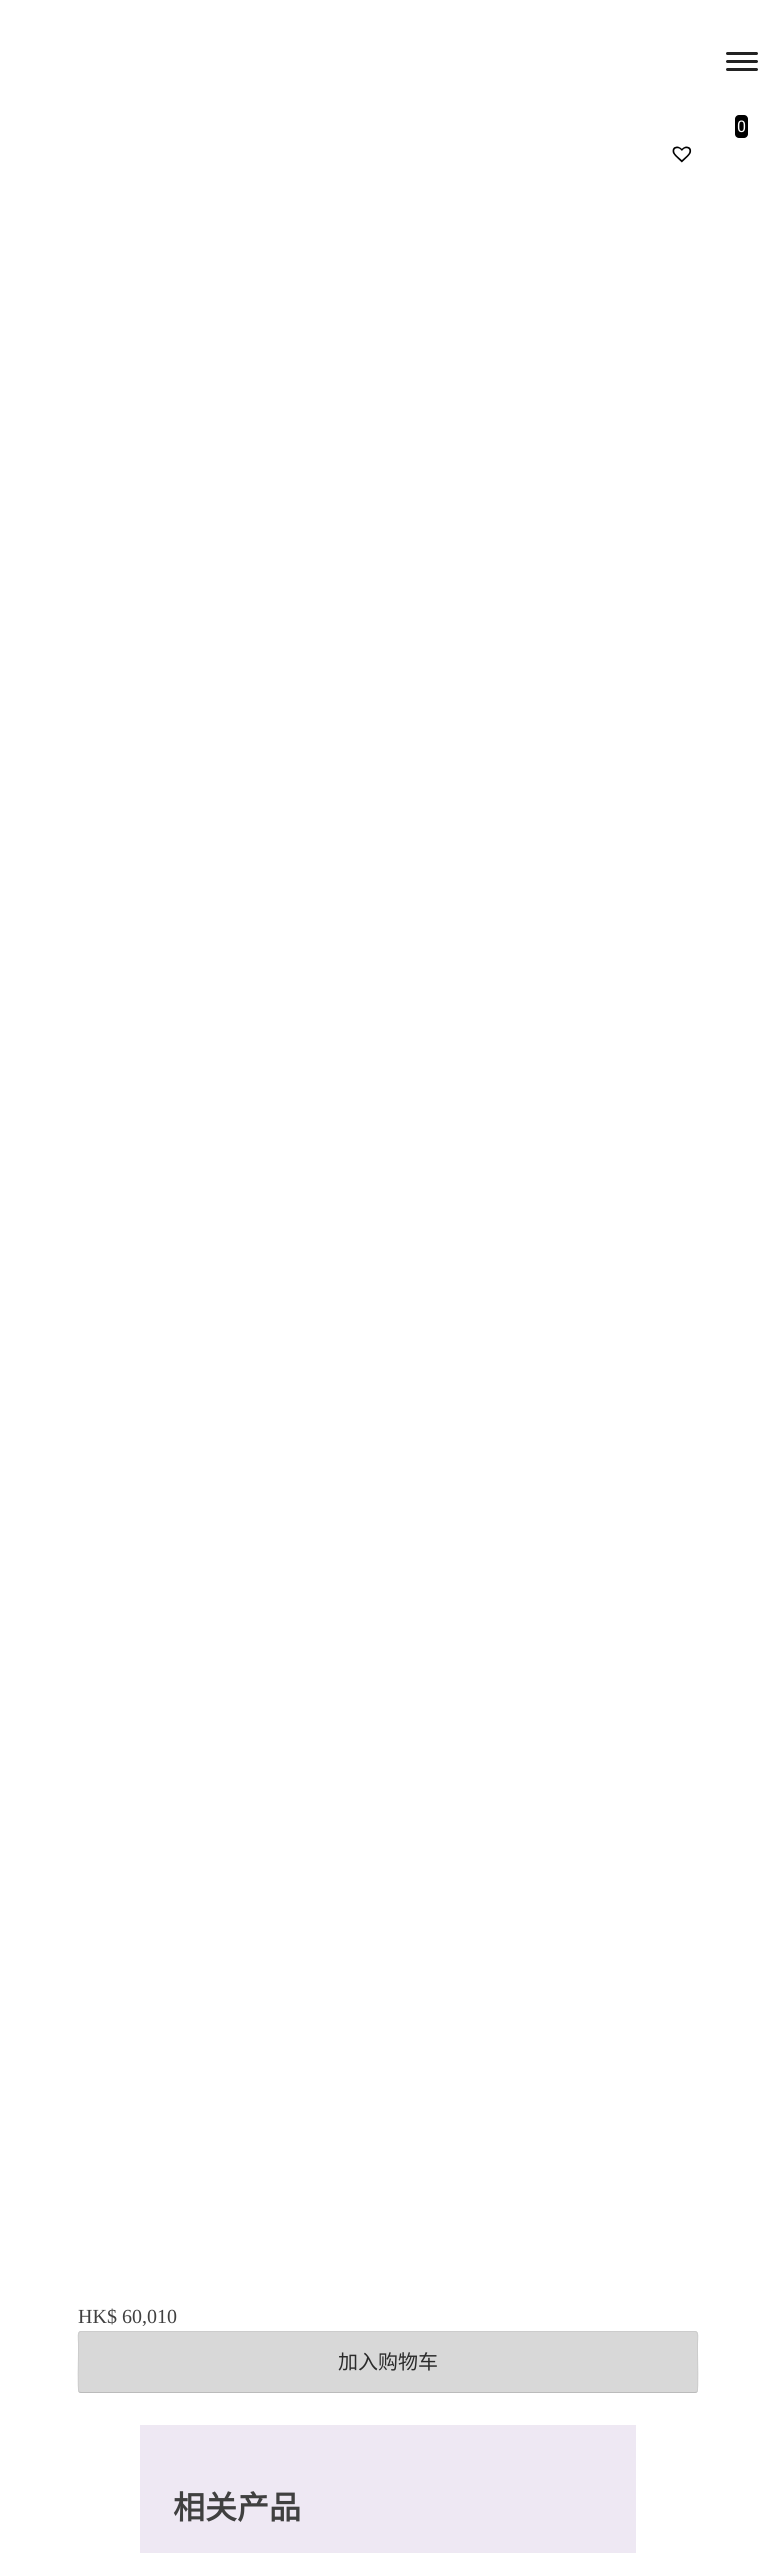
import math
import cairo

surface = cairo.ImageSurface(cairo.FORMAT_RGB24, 776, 2553)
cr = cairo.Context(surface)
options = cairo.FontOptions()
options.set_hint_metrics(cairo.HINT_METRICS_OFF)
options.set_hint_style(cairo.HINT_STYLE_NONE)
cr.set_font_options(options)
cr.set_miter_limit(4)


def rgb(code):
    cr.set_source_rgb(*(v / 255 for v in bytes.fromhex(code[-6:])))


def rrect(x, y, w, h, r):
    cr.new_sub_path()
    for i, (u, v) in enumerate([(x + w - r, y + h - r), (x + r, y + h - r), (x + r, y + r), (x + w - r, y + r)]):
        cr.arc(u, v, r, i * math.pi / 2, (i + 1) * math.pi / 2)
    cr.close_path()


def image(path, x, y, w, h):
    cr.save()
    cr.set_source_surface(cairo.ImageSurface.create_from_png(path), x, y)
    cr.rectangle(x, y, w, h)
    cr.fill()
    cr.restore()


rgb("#ffffff")
cr.paint()
rgb("#222222")
rrect(726, 52, 32, 3, 1.5)
cr.fill()
rrect(726, 60, 32, 3, 1.5)
cr.fill()
rrect(726, 68, 32, 3, 1.5)
cr.fill()
rgb("#000000")
rrect(735, 115, 13, 23, 4)
cr.fill()
image("img/1.png", 672, 146, 20, 17)
rgb("#d8d8d8")
rrect(78, 2331, 620, 62, 3)
cr.fill()
cr.new_path()
cr.move_to(697, 2392)
cr.line_to(695, 2392.5)
cr.line_to(81, 2392.5)
cr.line_to(79, 2392)
rgb("#bbbbbb")
cr.set_line_width(1)
cr.stroke()
cr.new_path()
cr.move_to(79, 2392)
cr.curve_to(77.5, 2390, 78.5, 2357.5, 78.5, 2352.5)
cr.line_to(78.5, 2343.5)
cr.curve_to(78.5, 2338.5, 77, 2331.5, 81, 2331.5)
cr.line_to(695, 2331.5)
cr.curve_to(699, 2331.5, 697.5, 2338.5, 697.5, 2343.5)
cr.line_to(697.5, 2352.5)
cr.curve_to(697.5, 2357.5, 698.5, 2390, 697, 2392)
rgb("#cccccc")
cr.stroke()
rgb("#eee8f3")
cr.rectangle(140, 2425, 496, 128)
cr.fill()
cr.select_font_face("Roboto")
cr.set_font_size(16)
rgb("#ffffff")
cr.move_to(737, 132)
cr.show_text("0")
cr.select_font_face("Liberation Serif")
cr.set_font_size(20)
rgb("#404040")
cr.move_to(78, 2323)
cr.show_text("HK$ 60,010")
cr.select_font_face("Noto Sans CJK SC")
rgb("#2b2b2b")
cr.move_to(338, 2369)
cr.show_text("加入购物车")
cr.select_font_face("Noto Sans CJK SC", cairo.FONT_SLANT_NORMAL, cairo.FONT_WEIGHT_BOLD)
cr.set_font_size(32)
rgb("#404040")
cr.move_to(173, 2519)
cr.show_text("相关产品")
surface.write_to_png("page.png")
